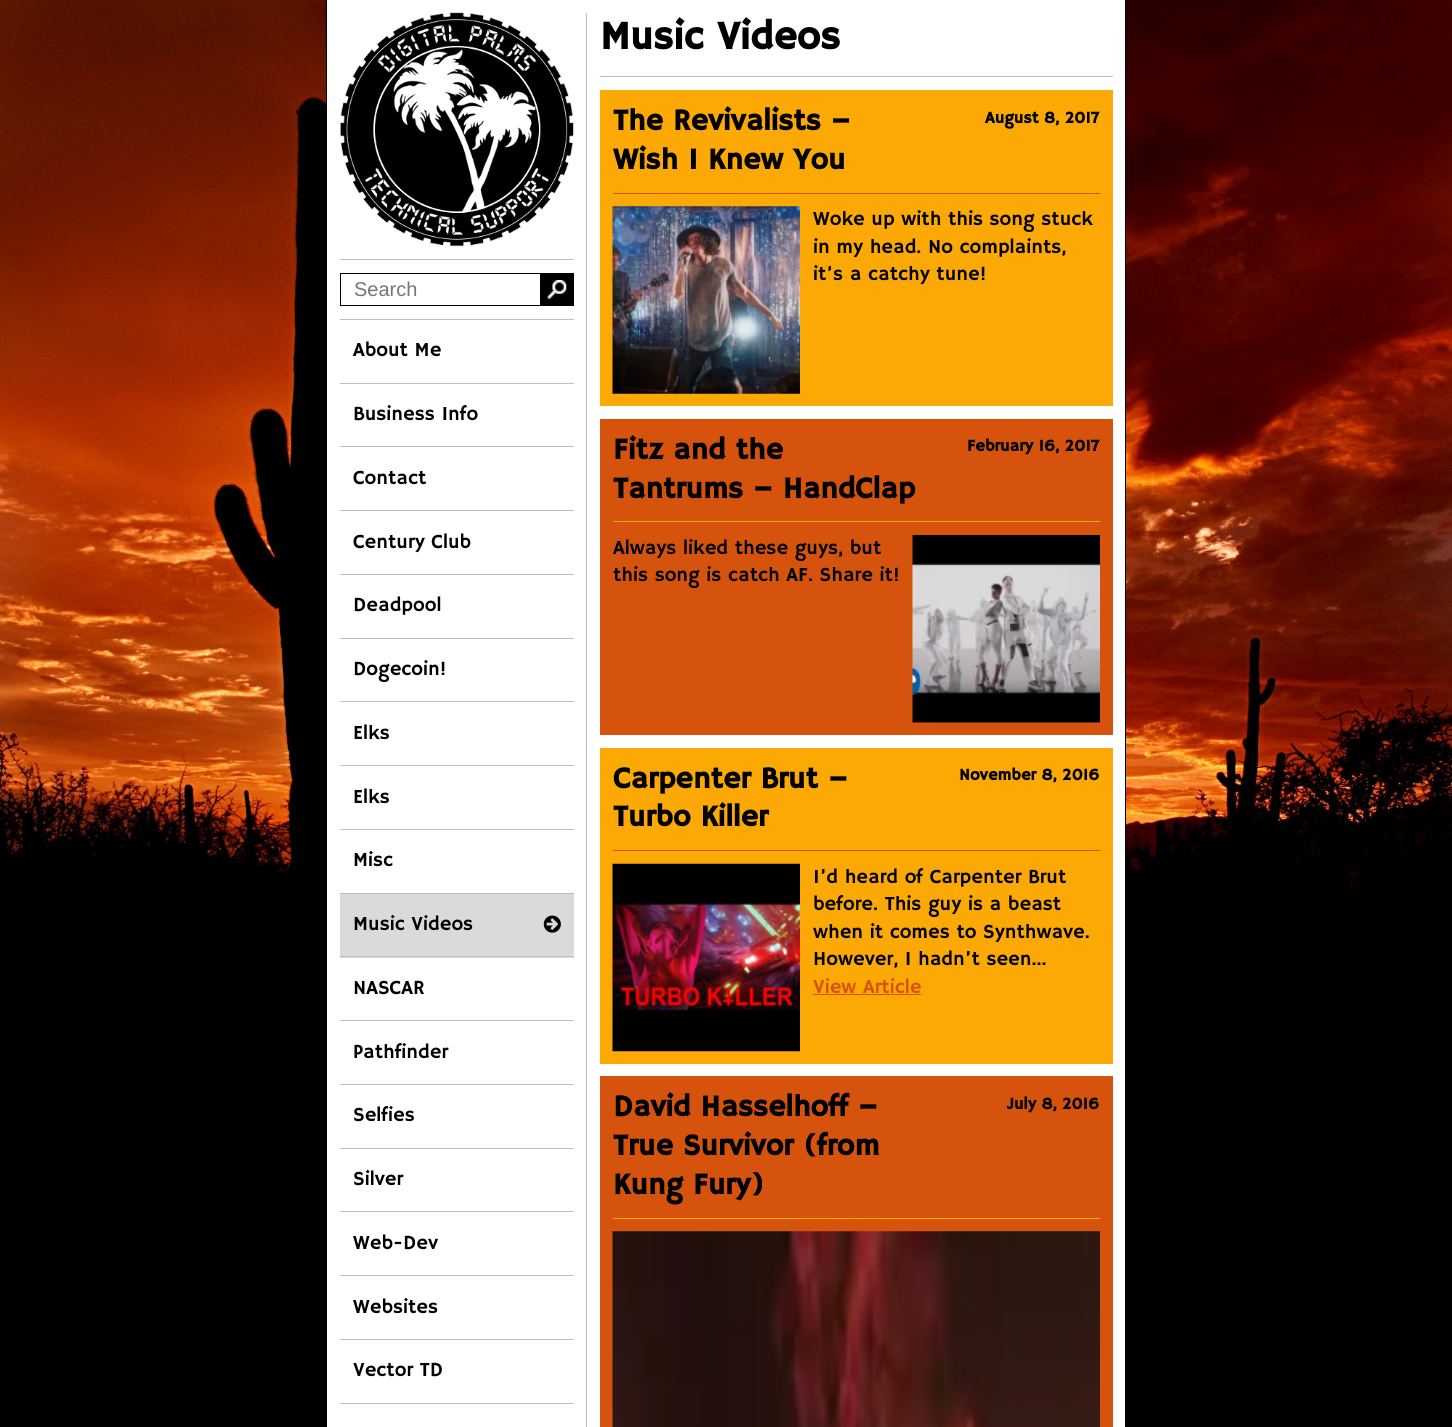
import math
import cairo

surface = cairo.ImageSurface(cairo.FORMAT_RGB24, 1452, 1427)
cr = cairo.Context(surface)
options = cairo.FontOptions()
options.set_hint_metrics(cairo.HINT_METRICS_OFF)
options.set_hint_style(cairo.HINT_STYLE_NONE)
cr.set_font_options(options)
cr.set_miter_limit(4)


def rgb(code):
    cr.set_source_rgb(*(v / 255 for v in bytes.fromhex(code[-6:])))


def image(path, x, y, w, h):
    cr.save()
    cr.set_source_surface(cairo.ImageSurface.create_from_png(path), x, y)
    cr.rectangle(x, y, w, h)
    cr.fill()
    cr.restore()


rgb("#000000")
cr.paint()
image("img/1.png", 0, 0, 1452, 965)
for x, y, w, h, color in [
    (327, 0, 798, 1427, "#ffffff"),
    (1125, 0, 1, 909, "#000000"),
    (326, 0, 1, 107, "#000000"),
    (586, 13, 1, 1414, "#c0c0c0"),
]:
    rgb(color)
    cr.rectangle(x, y, w, h)
    cr.fill()
image("img/2.png", 340, 12, 234, 235)
cr.rectangle(340, 259, 234, 1)
cr.fill()
cr.rectangle(340.5, 273.5, 203, 32)
rgb("#000000")
cr.set_line_width(1)
cr.stroke()
cr.rectangle(540, 273, 34, 33)
cr.fill()
image("img/3.png", 547, 280, 20, 19)
for x, y, w, h, color in [
    (340, 319, 234, 1, "#c0c0c0"),
    (340, 383, 234, 1, "#c0c0c0"),
    (340, 446, 234, 1, "#c0c0c0"),
    (340, 510, 234, 1, "#c0c0c0"),
    (340, 574, 234, 1, "#c0c0c0"),
    (340, 638, 234, 1, "#c0c0c0"),
    (340, 701, 234, 1, "#c0c0c0"),
    (340, 765, 234, 1, "#c0c0c0"),
    (340, 829, 234, 1, "#c0c0c0"),
    (340, 893, 234, 1, "#c0c0c0"),
    (340, 894, 234, 64, "#dadada"),
    (340, 956, 234, 1, "#c0c0c0"),
]:
    rgb(color)
    cr.rectangle(x, y, w, h)
    cr.fill()
image("img/4.png", 543, 915, 18, 18)
for x, y, w, h, color in [
    (340, 1020, 234, 1, "#c0c0c0"),
    (340, 1084, 234, 1, "#c0c0c0"),
    (340, 1148, 234, 1, "#c0c0c0"),
    (340, 1211, 234, 1, "#c0c0c0"),
    (340, 1275, 234, 1, "#c0c0c0"),
    (340, 1339, 234, 1, "#c0c0c0"),
    (340, 1403, 234, 1, "#c0c0c0"),
    (600, 76, 513, 1, "#c0c0c0"),
    (600, 90, 513, 316, "#fca905"),
    (613, 193, 487, 1, "#d6530d"),
]:
    rgb(color)
    cr.rectangle(x, y, w, h)
    cr.fill()
image("img/5.png", 612, 206, 188, 188)
cr.rectangle(600, 419, 513, 316)
cr.fill()
rgb("#fca905")
cr.rectangle(613, 521, 487, 1)
cr.fill()
image("img/6.png", 912, 535, 188, 188)
cr.rectangle(600, 748, 513, 316)
cr.fill()
rgb("#d6530d")
cr.rectangle(613, 850, 487, 1)
cr.fill()
image("img/7.png", 612, 863, 188, 189)
for x, y, w, h, color in [
    (813, 994, 108, 1, "#d6530d"),
    (600, 1076, 513, 351, "#d6530d"),
    (613, 1218, 487, 1, "#fca905"),
]:
    rgb(color)
    cr.rectangle(x, y, w, h)
    cr.fill()
image("img/8.png", 612, 1231, 488, 196)
cr.select_font_face("Liberation Sans")
cr.set_font_size(20)
rgb("#757575")
cr.move_to(354, 296)
cr.show_text("Search")
cr.select_font_face("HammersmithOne")
rgb("#000000")
for x, y, s in [
    (353, 356, "About Me"),
    (353, 420, "Business Info"),
    (353, 484, "Contact"),
    (353, 548, "Century Club"),
    (353, 611, "Deadpool"),
    (353, 675, "Dogecoin!"),
    (353, 739, "Elks"),
    (353, 803, "Elks"),
    (353, 866, "Misc"),
    (353, 930, "Music Videos"),
    (353, 994, "NASCAR"),
    (353, 1058, "Pathfinder"),
    (353, 1121, "Selfies"),
    (353, 1185, "Silver"),
    (353, 1249, "Web-Dev"),
    (353, 1313, "Websites"),
    (353, 1376, "Vector TD"),
]:
    cr.move_to(x, y)
    cr.show_text(s)
cr.select_font_face("HammersmithOne", cairo.FONT_SLANT_NORMAL, cairo.FONT_WEIGHT_BOLD)
cr.set_font_size(40)
cr.move_to(600, 49)
cr.show_text("Music Videos")
cr.set_font_size(30)
cr.move_to(613, 130)
cr.show_text("The Revivalists –")
cr.move_to(613, 169)
cr.show_text("Wish I Knew You")
cr.set_font_size(16.5)
cr.move_to(985, 123)
cr.show_text("August 8, 2017")
cr.select_font_face("HammersmithOne")
cr.set_font_size(20)
for x, y, s in [
    (813, 225, "Woke up with this song stuck"),
    (813, 253, "in my head. No complaints,"),
    (813, 280, "it’s a catchy tune!"),
]:
    cr.move_to(x, y)
    cr.show_text(s)
cr.select_font_face("HammersmithOne", cairo.FONT_SLANT_NORMAL, cairo.FONT_WEIGHT_BOLD)
cr.set_font_size(30)
cr.move_to(613, 459)
cr.show_text("Fitz and the")
cr.move_to(613, 498)
cr.show_text("Tantrums – HandClap")
cr.set_font_size(16.5)
cr.move_to(967, 451)
cr.show_text("February 16, 2017")
cr.select_font_face("HammersmithOne")
cr.set_font_size(20)
cr.move_to(613, 554)
cr.show_text("Always liked these guys, but")
cr.move_to(613, 581)
cr.show_text("this song is catch AF. Share it!")
cr.select_font_face("HammersmithOne", cairo.FONT_SLANT_NORMAL, cairo.FONT_WEIGHT_BOLD)
cr.set_font_size(30)
cr.move_to(613, 788)
cr.show_text("Carpenter Brut –")
cr.move_to(613, 826)
cr.show_text("Turbo Killer")
cr.set_font_size(16.5)
cr.move_to(959, 780)
cr.show_text("November 8, 2016")
cr.select_font_face("HammersmithOne")
cr.set_font_size(20)
for x, y, s in [
    (813, 883, "I’d heard of Carpenter Brut"),
    (813, 910, "before. This guy is a beast"),
    (813, 938, "when it comes to Synthwave."),
    (813, 965, "However, I hadn’t seen..."),
]:
    cr.move_to(x, y)
    cr.show_text(s)
rgb("#d6530d")
cr.move_to(813, 993)
cr.show_text("View Article")
cr.select_font_face("HammersmithOne", cairo.FONT_SLANT_NORMAL, cairo.FONT_WEIGHT_BOLD)
cr.set_font_size(30)
rgb("#000000")
for x, y, s in [
    (613, 1116, "David Hasselhoff –"),
    (613, 1155, "True Survivor (from"),
    (613, 1194, "Kung Fury)"),
]:
    cr.move_to(x, y)
    cr.show_text(s)
cr.set_font_size(16.5)
cr.move_to(1007, 1109)
cr.show_text("July 8, 2016")
surface.write_to_png("page.png")
